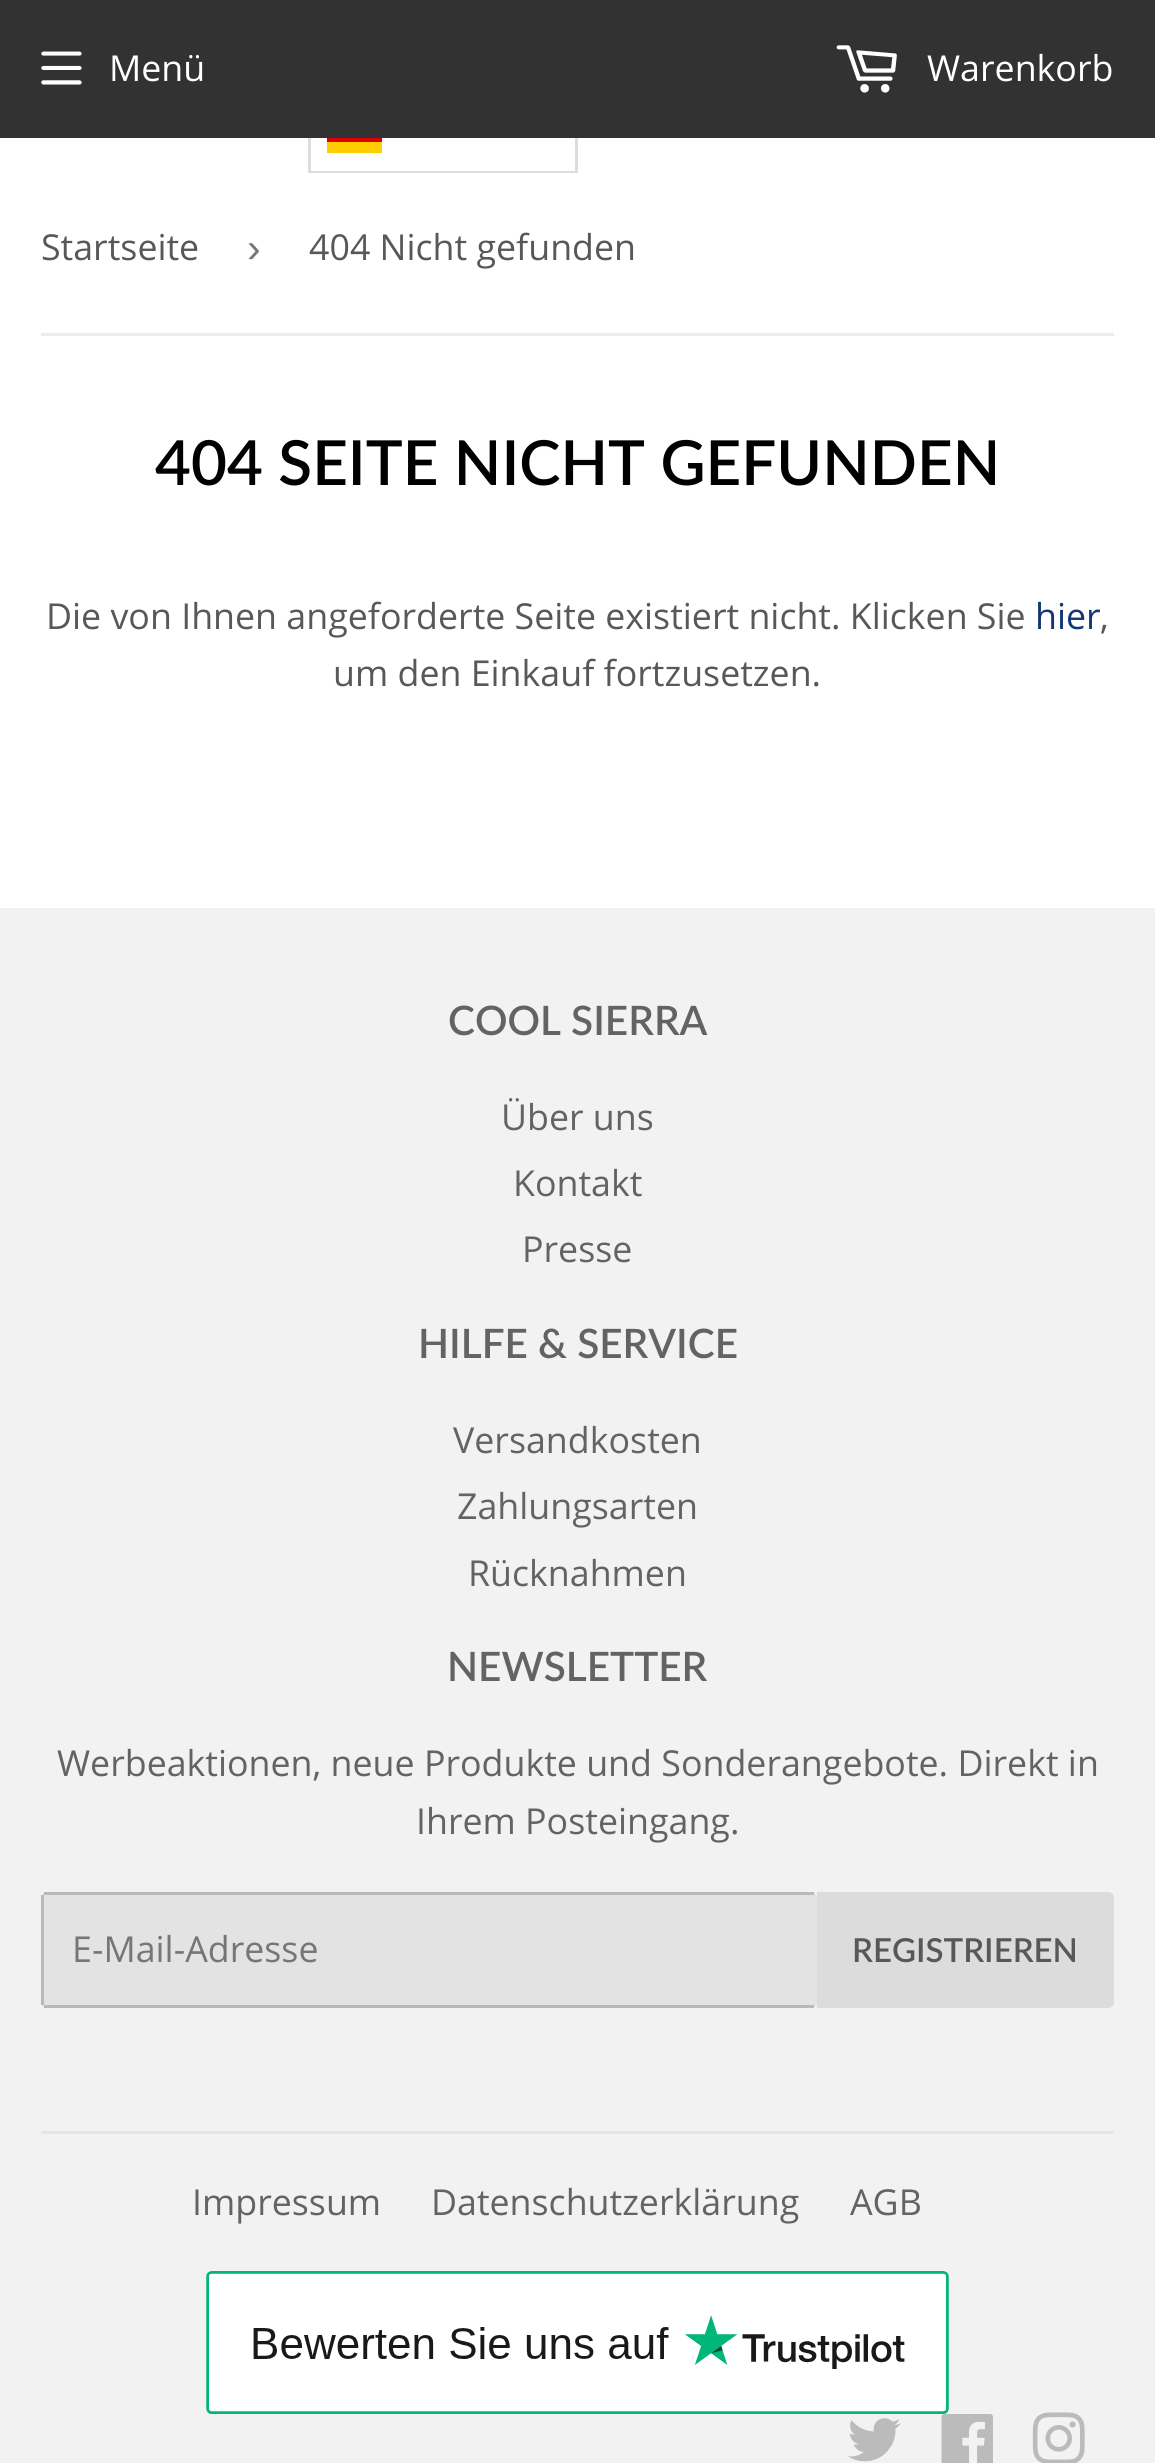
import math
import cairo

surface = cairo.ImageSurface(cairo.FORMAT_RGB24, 1155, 2463)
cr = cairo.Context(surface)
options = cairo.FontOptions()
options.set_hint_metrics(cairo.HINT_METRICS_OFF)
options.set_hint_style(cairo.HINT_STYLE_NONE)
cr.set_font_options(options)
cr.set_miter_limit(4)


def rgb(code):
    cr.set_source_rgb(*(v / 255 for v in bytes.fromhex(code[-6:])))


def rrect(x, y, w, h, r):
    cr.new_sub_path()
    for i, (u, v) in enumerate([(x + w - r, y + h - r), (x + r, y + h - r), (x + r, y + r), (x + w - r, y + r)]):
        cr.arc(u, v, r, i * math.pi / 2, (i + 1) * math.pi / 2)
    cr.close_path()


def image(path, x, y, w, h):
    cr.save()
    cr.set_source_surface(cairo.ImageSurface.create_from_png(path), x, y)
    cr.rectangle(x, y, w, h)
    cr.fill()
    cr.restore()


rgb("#ffffff")
cr.paint()
cr.rectangle(309.5, 92.5, 267, 79)
rgb("#dddddd")
cr.set_line_width(3)
cr.stroke()
rgb("#323232")
cr.rectangle(0, 0, 1155, 138)
cr.fill()
image("img/1.png", 41, 51, 41, 34)
image("img/2.png", 836, 45, 61, 48)
for x, y, w, h, color in [
    (311, 170, 264, 1, "#fdfdfd"),
    (327, 138, 55, 4, "#dd0000"),
    (327, 142, 55, 11, "#ffce00"),
    (41, 333, 1073, 3, "#ececec"),
    (0, 908, 1155, 1555, "#f2f2f2"),
]:
    rgb(color)
    cr.rectangle(x, y, w, h)
    cr.fill()
rgb("#e3e3e3")
rrect(41, 1892, 776, 116, 6)
cr.fill()
for x, y, w, h, color in [
    (44, 1892, 770, 3, "#b9b9b9"),
    (44, 2005, 770, 3, "#b9b9b9"),
    (41, 1895, 3, 110, "#b9b9b9"),
]:
    rgb(color)
    cr.rectangle(x, y, w, h)
    cr.fill()
rgb("#dcdcdc")
cr.new_path()
cr.move_to(817, 1892)
cr.line_to(1108, 1892)
cr.curve_to(1111.5, 1892, 1114, 1894.5, 1114, 1898)
cr.line_to(1114, 2002)
cr.curve_to(1114, 2005.5, 1111.5, 2008, 1108, 2008)
cr.line_to(817, 2008)
cr.close_path()
cr.fill()
rgb("#e5e5e5")
cr.rectangle(41, 2131, 1073, 3)
cr.fill()
image("img/3.png", 206, 2271, 743, 143)
image("img/4.png", 848, 2418, 53, 44)
image("img/5.png", 941, 2414, 52, 49)
image("img/6.png", 1032, 2412, 53, 51)
cr.select_font_face("Open Sans")
cr.set_font_size(35.75)
rgb("#ffffff")
cr.move_to(109, 81)
cr.show_text("Menü")
cr.move_to(927, 81)
cr.show_text("Warenkorb")
rgb("#585858")
cr.move_to(41, 260)
cr.show_text("Startseite")
cr.select_font_face("Liberation Sans")
cr.set_font_size(41)
rgb("#767676")
cr.move_to(247, 262)
cr.show_text("›")
cr.select_font_face("Open Sans")
cr.set_font_size(35.75)
rgb("#585858")
cr.move_to(309, 260)
cr.show_text("404 Nicht gefunden")
cr.select_font_face("Lato SemiBold")
cr.set_font_size(62)
rgb("#000000")
cr.move_to(155, 485)
cr.show_text("404 SEITE NICHT GEFUNDEN")
cr.select_font_face("Open Sans")
cr.set_font_size(35.75)
rgb("#585858")
cr.move_to(46, 629)
cr.show_text("Die von Ihnen angeforderte Seite existiert nicht. Klicken Sie")
rgb("#143676")
cr.move_to(1035, 629)
cr.show_text("hier")
rgb("#585858")
cr.move_to(1100, 629)
cr.show_text(",")
cr.move_to(333, 686)
cr.show_text("um den Einkauf fortzusetzen.")
cr.select_font_face("Lato SemiBold")
cr.set_font_size(40.5)
rgb("#636363")
cr.move_to(448, 1035)
cr.show_text("COOL SIERRA")
cr.select_font_face("Open Sans")
cr.set_font_size(35.75)
for x, y, s in [
    (501, 1130, "Über uns"),
    (513, 1196, "Kontakt"),
    (522, 1262, "Presse"),
]:
    cr.move_to(x, y)
    cr.show_text(s)
cr.select_font_face("Lato SemiBold")
cr.set_font_size(40.5)
cr.move_to(418, 1358)
cr.show_text("HILFE & SERVICE")
cr.select_font_face("Open Sans")
cr.set_font_size(35.75)
for x, y, s in [
    (453, 1453, "Versandkosten"),
    (457, 1519, "Zahlungsarten"),
    (468, 1586, "Rücknahmen"),
]:
    cr.move_to(x, y)
    cr.show_text(s)
cr.select_font_face("Lato SemiBold")
cr.set_font_size(40.5)
cr.move_to(447, 1681)
cr.show_text("NEWSLETTER")
cr.select_font_face("Open Sans")
cr.set_font_size(35.75)
cr.move_to(57, 1776)
cr.show_text("Werbeaktionen, neue Produkte und Sonderangebote. Direkt in")
cr.move_to(416, 1834)
cr.show_text("Ihrem Posteingang.")
rgb("#767676")
cr.move_to(72, 1962)
cr.show_text("E-Mail-Adresse")
cr.select_font_face("Lato SemiBold")
cr.set_font_size(33)
rgb("#585858")
cr.move_to(852, 1962)
cr.show_text("REGISTRIEREN")
cr.select_font_face("Open Sans")
cr.set_font_size(35.75)
rgb("#636363")
for x, y, s in [
    (192, 2215, "Impressum"),
    (431, 2215, "Datenschutzerklärung"),
    (850, 2215, "AGB"),
]:
    cr.move_to(x, y)
    cr.show_text(s)
surface.write_to_png("page.png")
